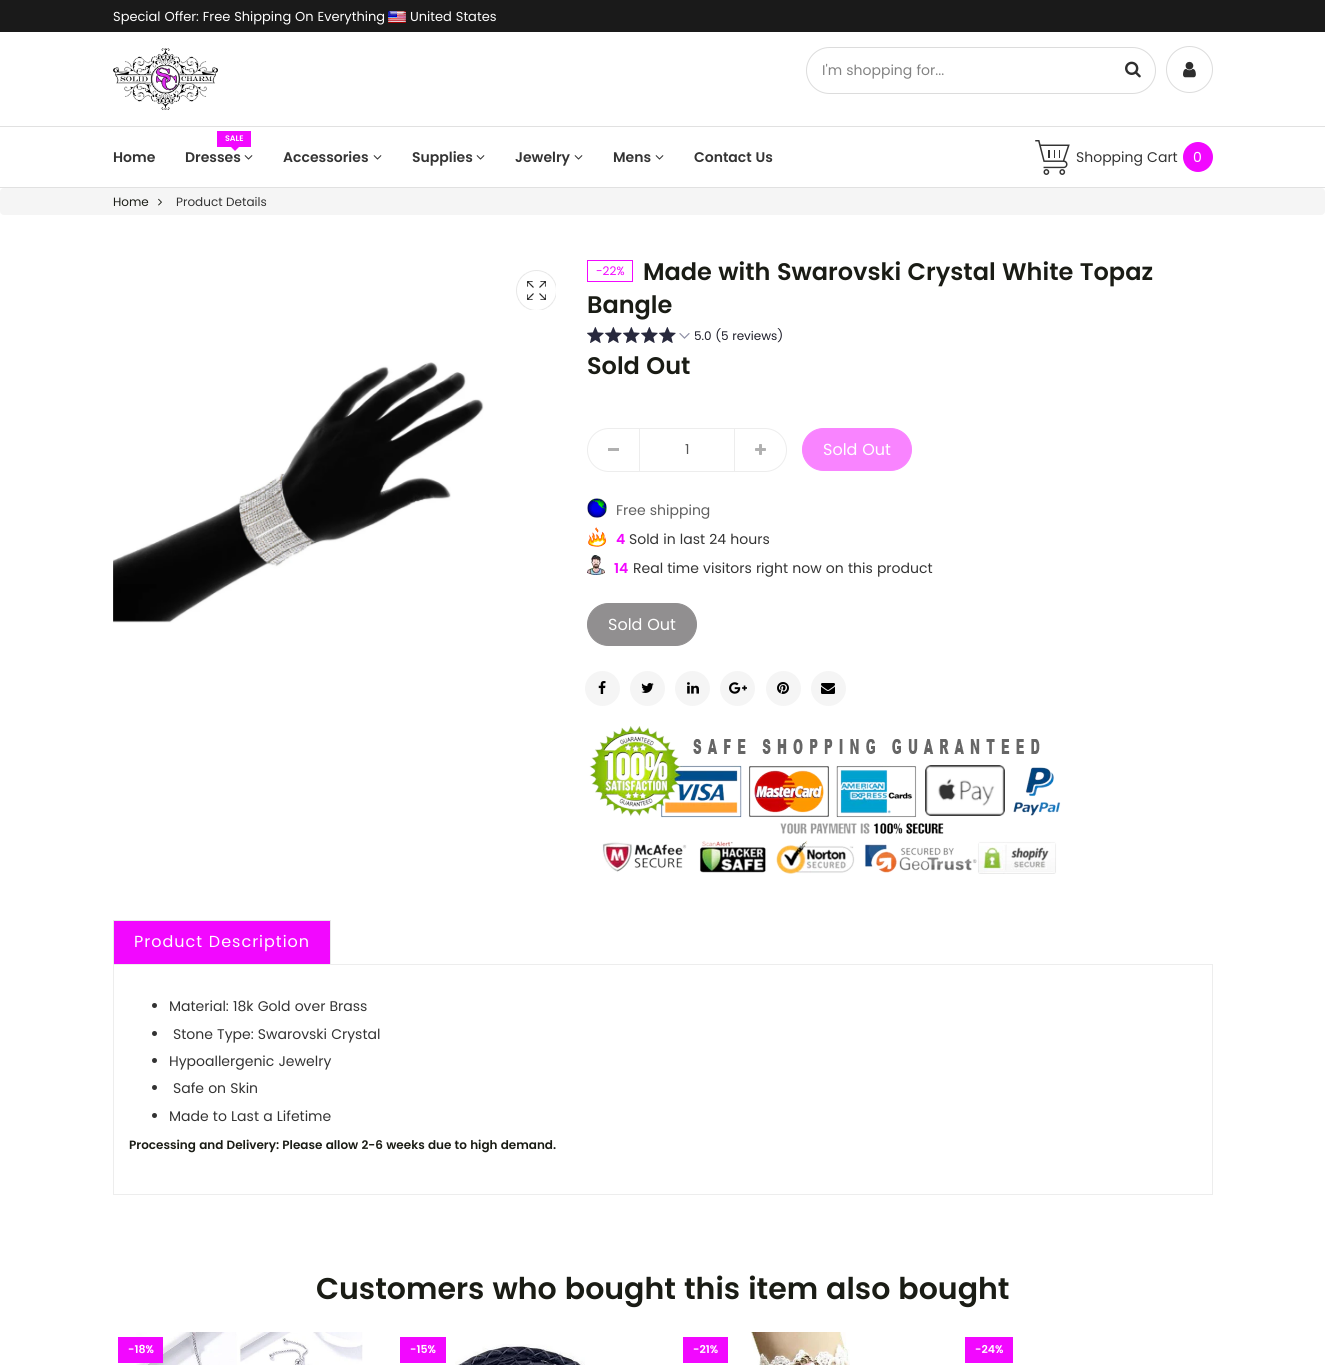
import math
import cairo

surface = cairo.ImageSurface(cairo.FORMAT_RGB24, 1325, 1365)
cr = cairo.Context(surface)
options = cairo.FontOptions()
options.set_hint_metrics(cairo.HINT_METRICS_OFF)
options.set_hint_style(cairo.HINT_STYLE_NONE)
cr.set_font_options(options)
cr.set_miter_limit(4)


def rgb(code):
    cr.set_source_rgb(*(v / 255 for v in bytes.fromhex(code[-6:])))


def tracked(x, y, s, letter, word):
    cr.move_to(x, y)
    for ch in s:
        cr.show_text(ch)
        cr.rel_move_to(letter + word * (ch == ' '), 0)


def rrect(x, y, w, h, r):
    cr.new_sub_path()
    for i, (u, v) in enumerate([(x + w - r, y + h - r), (x + r, y + h - r), (x + r, y + r), (x + w - r, y + r)]):
        cr.arc(u, v, r, i * math.pi / 2, (i + 1) * math.pi / 2)
    cr.close_path()


def image(path, x, y, w, h):
    cr.save()
    cr.set_source_surface(cairo.ImageSurface.create_from_png(path), x, y)
    cr.rectangle(x, y, w, h)
    cr.fill()
    cr.restore()


rgb("#ffffff")
cr.paint()
rgb("#1a1a1a")
cr.rectangle(0, 0, 1325, 32)
cr.fill()
image("img/1.png", 388, 11, 18, 12)
image("img/2.png", 113, 48, 105, 62)
rrect(806.5, 47.5, 349, 46, 23)
rgb("#dcdcdc")
cr.set_line_width(1)
cr.stroke()
image("img/3.png", 1125, 61, 16, 17)
cr.arc(1189.5, 69.5, 23, 0, 2 * math.pi)
cr.stroke()
image("img/4.png", 1183, 61, 13, 17)
for x, y, w, h, color in [
    (0, 126, 1325, 1, "#e1e1e1"),
    (0, 187, 1325, 1, "#e1e1e1"),
    (217, 131, 34, 16, "#f208ff"),
]:
    rgb(color)
    cr.rectangle(x, y, w, h)
    cr.fill()
cr.new_path()
cr.move_to(231, 147)
cr.line_to(239, 147)
cr.line_to(235, 151)
cr.close_path()
cr.fill()
image("img/5.png", 244, 155, 9, 5)
image("img/5.png", 373, 155, 9, 5)
image("img/5.png", 476, 155, 9, 5)
image("img/5.png", 574, 155, 9, 5)
image("img/5.png", 655, 155, 9, 5)
image("img/6.png", 1035, 140, 35, 35)
cr.arc(1198, 157, 15, 0, 2 * math.pi)
cr.fill()
rgb("#f5f5f5")
rrect(0, 188, 1325, 27, 4)
cr.fill()
image("img/7.png", 158, 198, 4, 8)
image("img/8.png", 516, 270, 40, 40)
image("img/9.png", 113, 362, 371, 261)
cr.rectangle(587.5, 260.5, 45, 21)
rgb("#f208ff")
cr.stroke()
image("img/10.png", 587, 327, 17, 16)
image("img/10.png", 605, 327, 17, 16)
image("img/10.png", 623, 327, 17, 16)
image("img/10.png", 641, 327, 17, 16)
image("img/10.png", 659, 327, 17, 16)
image("img/11.png", 679, 333, 11, 6)
cr.new_path()
cr.move_to(609, 428.5)
cr.line_to(639.5, 428.5)
cr.line_to(639.5, 471.5)
cr.line_to(609, 471.5)
cr.curve_to(597, 471.5, 587.5, 462, 587.5, 450)
cr.curve_to(587.5, 438, 597, 428.5, 609, 428.5)
cr.close_path()
rgb("#ededed")
cr.stroke()
for x, y, w, h, color in [
    (608, 448, 11, 3, "#b0b0b0"),
    (640, 428, 94, 1, "#ededed"),
    (640, 471, 94, 1, "#ededed"),
]:
    rgb(color)
    cr.rectangle(x, y, w, h)
    cr.fill()
cr.new_path()
cr.move_to(734.5, 428.5)
cr.line_to(765, 428.5)
cr.curve_to(777, 428.5, 786.5, 438, 786.5, 450)
cr.curve_to(786.5, 462, 777, 471.5, 765, 471.5)
cr.line_to(734.5, 471.5)
cr.close_path()
cr.stroke()
image("img/12.png", 755, 444, 11, 11)
rgb("#f984ff")
rrect(802.5, 428.5, 109, 42, 21)
cr.fill_preserve()
cr.stroke()
image("img/13.png", 587, 498, 20, 20)
image("img/14.png", 588, 527, 19, 20)
image("img/15.png", 587, 555, 18, 20)
rgb("#918f90")
rrect(587.5, 603.5, 109, 42, 21)
cr.fill_preserve()
cr.stroke()
rgb("#f5f5f5")
cr.arc(602.5, 688.5, 17.5, 0, 2 * math.pi)
cr.fill()
image("img/16.png", 598, 681, 8, 13)
cr.arc(647.5, 688.5, 17.5, 0, 2 * math.pi)
cr.fill()
image("img/17.png", 641, 683, 13, 10)
cr.arc(692.5, 688.5, 17.5, 0, 2 * math.pi)
cr.fill()
image("img/18.png", 687, 682, 12, 12)
cr.arc(737.5, 688.5, 17.5, 0, 2 * math.pi)
cr.fill()
image("img/19.png", 729, 682, 18, 12)
cr.arc(783.5, 688.5, 17.5, 0, 2 * math.pi)
cr.fill()
image("img/20.png", 777, 682, 12, 12)
cr.arc(828.5, 688.5, 17.5, 0, 2 * math.pi)
cr.fill()
image("img/21.png", 821, 683, 14, 11)
image("img/22.png", 589, 726, 472, 148)
for x, y, w, h, color in [
    (113, 920, 218, 1, "#e8e8e8"),
    (330, 920, 1, 44, "#e8e8e8"),
    (113, 920, 1, 44, "#e8e8e8"),
    (114, 921, 216, 43, "#f208ff"),
]:
    rgb(color)
    cr.rectangle(x, y, w, h)
    cr.fill()
cr.rectangle(113.5, 964.5, 1099, 230)
rgb("#ededed")
cr.stroke()
rgb("#333333")
cr.arc(154.5, 1005.5, 2.5, 0, 2 * math.pi)
cr.fill()
cr.arc(154.5, 1033.5, 2.5, 0, 2 * math.pi)
cr.fill()
cr.arc(154.5, 1060.5, 2.5, 0, 2 * math.pi)
cr.fill()
cr.arc(154.5, 1087.5, 2.5, 0, 2 * math.pi)
cr.fill()
cr.arc(154.5, 1115.5, 2.5, 0, 2 * math.pi)
cr.fill()
image("img/23.png", 136, 1332, 227, 33)
rgb("#f208ff")
cr.rectangle(118, 1337, 45, 26)
cr.fill()
cr.rectangle(400, 1337, 46, 26)
cr.fill()
image("img/24.png", 455, 1344, 130, 21)
cr.rectangle(683, 1337, 45, 26)
cr.fill()
image("img/25.png", 751, 1332, 99, 33)
cr.rectangle(965, 1337, 48, 26)
cr.fill()
cr.select_font_face("Poppins")
cr.set_font_size(13)
rgb("#ffffff")
cr.move_to(113, 21)
cr.show_text("Special Offer: Free Shipping On Everything")
cr.move_to(410, 21)
cr.show_text("United States")
cr.set_font_size(14)
rgb("#828282")
cr.move_to(822, 75)
cr.show_text("I'm shopping for...")
cr.select_font_face("Poppins SemiBold")
rgb("#333333")
cr.move_to(113, 162)
cr.show_text("Home")
cr.set_font_size(8)
rgb("#ffffff")
cr.move_to(225, 141)
cr.show_text("SALE")
cr.set_font_size(14)
rgb("#333333")
for x, y, s in [
    (185, 162, "Dresses"),
    (283, 162, "Accessories"),
    (412, 162, "Supplies"),
    (515, 162, "Jewelry"),
    (613, 162, "Mens"),
    (694, 162, "Contact Us"),
]:
    cr.move_to(x, y)
    cr.show_text(s)
cr.select_font_face("Poppins")
cr.move_to(1076, 162)
cr.show_text("Shopping Cart")
rgb("#ffffff")
cr.move_to(1193, 162)
cr.show_text("0")
cr.set_font_size(12)
rgb("#1a1c15")
cr.move_to(113, 206)
cr.show_text("Home")
rgb("#333333")
cr.move_to(176, 206)
cr.show_text("Product Details")
cr.select_font_face("Poppins SemiBold")
cr.set_font_size(24)
rgb("#1a1c15")
cr.move_to(643, 280)
cr.show_text("Made with Swarovski Crystal White Topaz")
cr.move_to(587, 313)
cr.show_text("Bangle")
cr.select_font_face("Poppins")
cr.set_font_size(12)
rgb("#f208ff")
cr.move_to(596, 275)
cr.show_text("-22%")
rgb("#1c1c28")
cr.move_to(694, 340)
cr.show_text("5.0 (5 reviews)")
cr.select_font_face("Poppins SemiBold")
cr.set_font_size(24)
rgb("#1a1c15")
cr.move_to(587, 374)
cr.show_text("Sold Out")
cr.select_font_face("Poppins")
cr.set_font_size(14)
rgb("#555555")
cr.move_to(685, 454)
cr.show_text("1")
cr.set_font_size(16)
rgb("#ffffff")
cr.move_to(823, 455)
cr.show_text("Sold Out")
cr.set_font_size(14)
rgb("#5f5f5f")
cr.move_to(616, 515)
cr.show_text("Free shipping")
cr.select_font_face("Poppins SemiBold")
rgb("#f208ff")
cr.move_to(616, 544)
cr.show_text("4")
cr.select_font_face("Poppins")
rgb("#333333")
cr.move_to(629, 544)
cr.show_text("Sold in last 24 hours")
cr.select_font_face("Poppins SemiBold")
rgb("#f208ff")
cr.move_to(614, 573)
cr.show_text("14")
cr.select_font_face("Poppins")
rgb("#333333")
cr.move_to(633, 573)
cr.show_text("Real time visitors right now on this product")
cr.set_font_size(16)
rgb("#ffffff")
cr.move_to(608, 630)
cr.show_text("Sold Out")
tracked(134, 947, "Product Description", 1, 0)
cr.set_font_size(14)
rgb("#333333")
for x, y, s in [
    (169, 1011, "Material: 18k Gold over Brass"),
    (173, 1039, "Stone Type: Swarovski Crystal"),
    (169, 1066, "Hypoallergenic Jewelry"),
    (173, 1093, "Safe on Skin"),
    (169, 1121, "Made to Last a Lifetime"),
]:
    cr.move_to(x, y)
    cr.show_text(s)
cr.select_font_face("Poppins SemiBold")
cr.set_font_size(12)
rgb("#1a1c15")
cr.move_to(129, 1149)
cr.show_text("Processing and Delivery: Please allow 2-6 weeks due to high demand.")
cr.set_font_size(30)
cr.move_to(316, 1299)
cr.show_text("Customers who bought this item also bought")
cr.set_font_size(11)
rgb("#ffffff")
for x, y, s in [
    (128, 1353, "-18%"),
    (410, 1353, "-15%"),
    (693, 1353, "-21%"),
    (975, 1353, "-24%"),
]:
    cr.move_to(x, y)
    cr.show_text(s)
surface.write_to_png("page.png")
